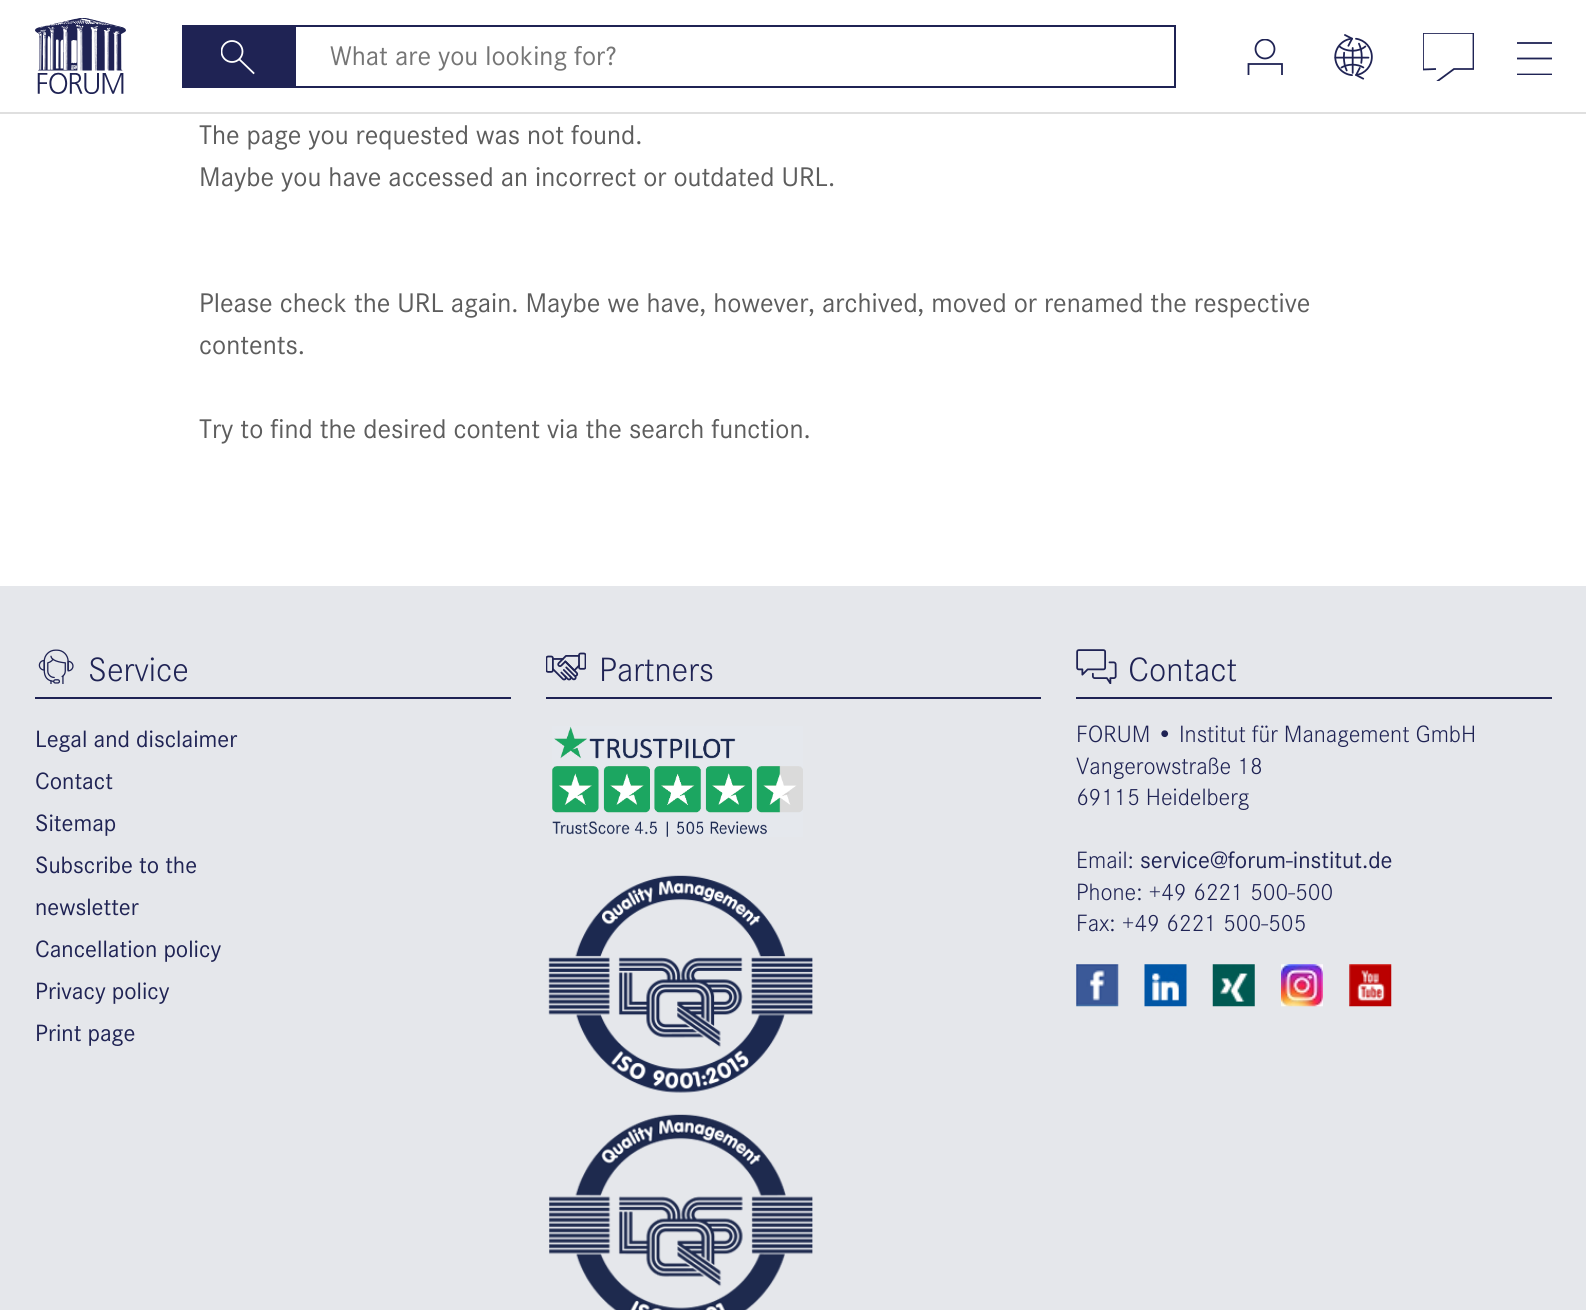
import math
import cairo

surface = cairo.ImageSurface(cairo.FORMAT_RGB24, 1586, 1310)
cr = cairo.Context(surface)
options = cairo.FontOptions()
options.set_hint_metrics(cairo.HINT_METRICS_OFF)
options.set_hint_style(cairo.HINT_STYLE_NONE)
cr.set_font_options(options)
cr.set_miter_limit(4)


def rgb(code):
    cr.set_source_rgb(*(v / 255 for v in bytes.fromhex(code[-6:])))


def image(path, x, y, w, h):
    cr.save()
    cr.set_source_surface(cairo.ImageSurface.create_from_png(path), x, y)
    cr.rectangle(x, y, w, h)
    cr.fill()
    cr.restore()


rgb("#ffffff")
cr.paint()
rgb("#dfdfdf")
cr.rectangle(0, 112, 1586, 2)
cr.fill()
image("img/1.png", 35, 18, 91, 76)
rgb("#1f2354")
cr.rectangle(182, 25, 112, 63)
cr.fill()
cr.save()
cr.rectangle(221, 40, 35, 35)
cr.clip()
cr.arc(232, 51.5, 10.5, 0, 2 * math.pi)
rgb("#ffffff")
cr.set_line_width(1.8)
cr.stroke()
cr.restore()
cr.new_path()
cr.move_to(239.5, 59.5)
cr.line_to(253.5, 73)
rgb("#ffffff")
cr.set_line_width(1.8)
cr.set_line_cap(cairo.LINE_CAP_SQUARE)
cr.stroke()
cr.rectangle(295, 26, 880, 61)
rgb("#1f2354")
cr.set_line_width(2)
cr.set_line_cap(cairo.LINE_CAP_BUTT)
cr.stroke()
cr.save()
cr.rectangle(1246, 39, 39, 38)
cr.clip()
cr.arc(1265, 49, 9.5, 0, 2 * math.pi)
cr.set_line_width(1.8)
cr.stroke()
cr.restore()
cr.new_path()
cr.move_to(1248.5, 75)
cr.line_to(1248.5, 64)
cr.line_to(1282, 64)
cr.line_to(1282, 75)
cr.set_line_width(1.8)
cr.stroke()
image("img/2.png", 1334, 34, 39, 46)
cr.save()
cr.rectangle(1423, 33, 51, 48)
cr.clip()
cr.new_path()
cr.move_to(1436, 69)
cr.line_to(1423, 69.5)
cr.line_to(1423, 33)
cr.line_to(1473.5, 33)
cr.line_to(1473.5, 69)
cr.line_to(1454, 69)
cr.line_to(1437, 81.5)
cr.stroke()
cr.restore()
rgb("#353965")
cr.rectangle(1517, 42, 35, 2)
cr.fill()
cr.save()
cr.rectangle(1517, 42, 35, 33)
cr.clip()
cr.new_path()
cr.move_to(1552, 58.5)
cr.line_to(1517, 58.5)
cr.move_to(1552, 74.5)
cr.line_to(1517, 74.5)
rgb("#1f2354")
cr.set_line_cap(cairo.LINE_CAP_SQUARE)
cr.stroke()
cr.restore()
rgb("#e5e7eb")
cr.rectangle(0, 586, 1586, 724)
cr.fill()
image("img/3.png", 38, 649, 36, 35)
rgb("#1f2354")
cr.rectangle(35, 697, 476, 2)
cr.fill()
image("img/4.png", 546, 652, 40, 29)
cr.rectangle(546, 697, 495, 2)
cr.fill()
image("img/5.png", 552, 726, 251, 111)
image("img/6.png", 548, 875, 265, 435)
image("img/7.png", 1076, 649, 41, 35)
cr.rectangle(1076, 697, 476, 2)
cr.fill()
image("img/8.png", 1076, 964, 43, 43)
image("img/9.png", 1144, 964, 43, 43)
image("img/10.png", 1212, 964, 43, 43)
image("img/11.png", 1281, 964, 42, 43)
image("img/12.png", 1349, 964, 43, 43)
cr.select_font_face("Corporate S")
cr.set_font_size(28)
rgb("#757575")
cr.move_to(330, 65)
cr.show_text("What are you looking for?")
rgb("#5d5d5d")
for x, y, s in [
    (199, 144, "The page you requested was not found."),
    (199, 186, "Maybe you have accessed an incorrect or outdated URL."),
    (199, 312, "Please check the URL again. Maybe we have, however, archived, moved or renamed the respective"),
    (199, 354, "contents."),
    (199, 438, "Try to find the desired content via the search function."),
]:
    cr.move_to(x, y)
    cr.show_text(s)
cr.select_font_face("Corporate S Light")
cr.set_font_size(35)
rgb("#1f2354")
cr.move_to(88, 681)
cr.show_text("Service")
cr.select_font_face("Corporate S")
cr.set_font_size(24.5)
for x, y, s in [
    (35, 747, "Legal and disclaimer"),
    (35, 789, "Contact"),
    (35, 831, "Sitemap"),
    (35, 873, "Subscribe to the"),
    (35, 915, "newsletter"),
    (35, 957, "Cancellation policy"),
    (35, 999, "Privacy policy"),
    (35, 1041, "Print page"),
]:
    cr.move_to(x, y)
    cr.show_text(s)
cr.select_font_face("Corporate S Light")
cr.set_font_size(35)
cr.move_to(599, 681)
cr.show_text("Partners")
cr.move_to(1128, 681)
cr.show_text("Contact")
cr.set_font_size(24.5)
for x, y, s in [
    (1076, 742, "FORUM • Institut für Management GmbH"),
    (1076, 774, "Vangerowstraße 18"),
    (1076, 805, "69115 Heidelberg"),
    (1076, 868, "Email:"),
]:
    cr.move_to(x, y)
    cr.show_text(s)
cr.select_font_face("Corporate S")
cr.move_to(1140, 868)
cr.show_text("service@forum-institut.de")
cr.select_font_face("Corporate S Light")
cr.move_to(1076, 900)
cr.show_text("Phone: +49 6221 500-500")
cr.move_to(1076, 931)
cr.show_text("Fax: +49 6221 500-505")
surface.write_to_png("page.png")
